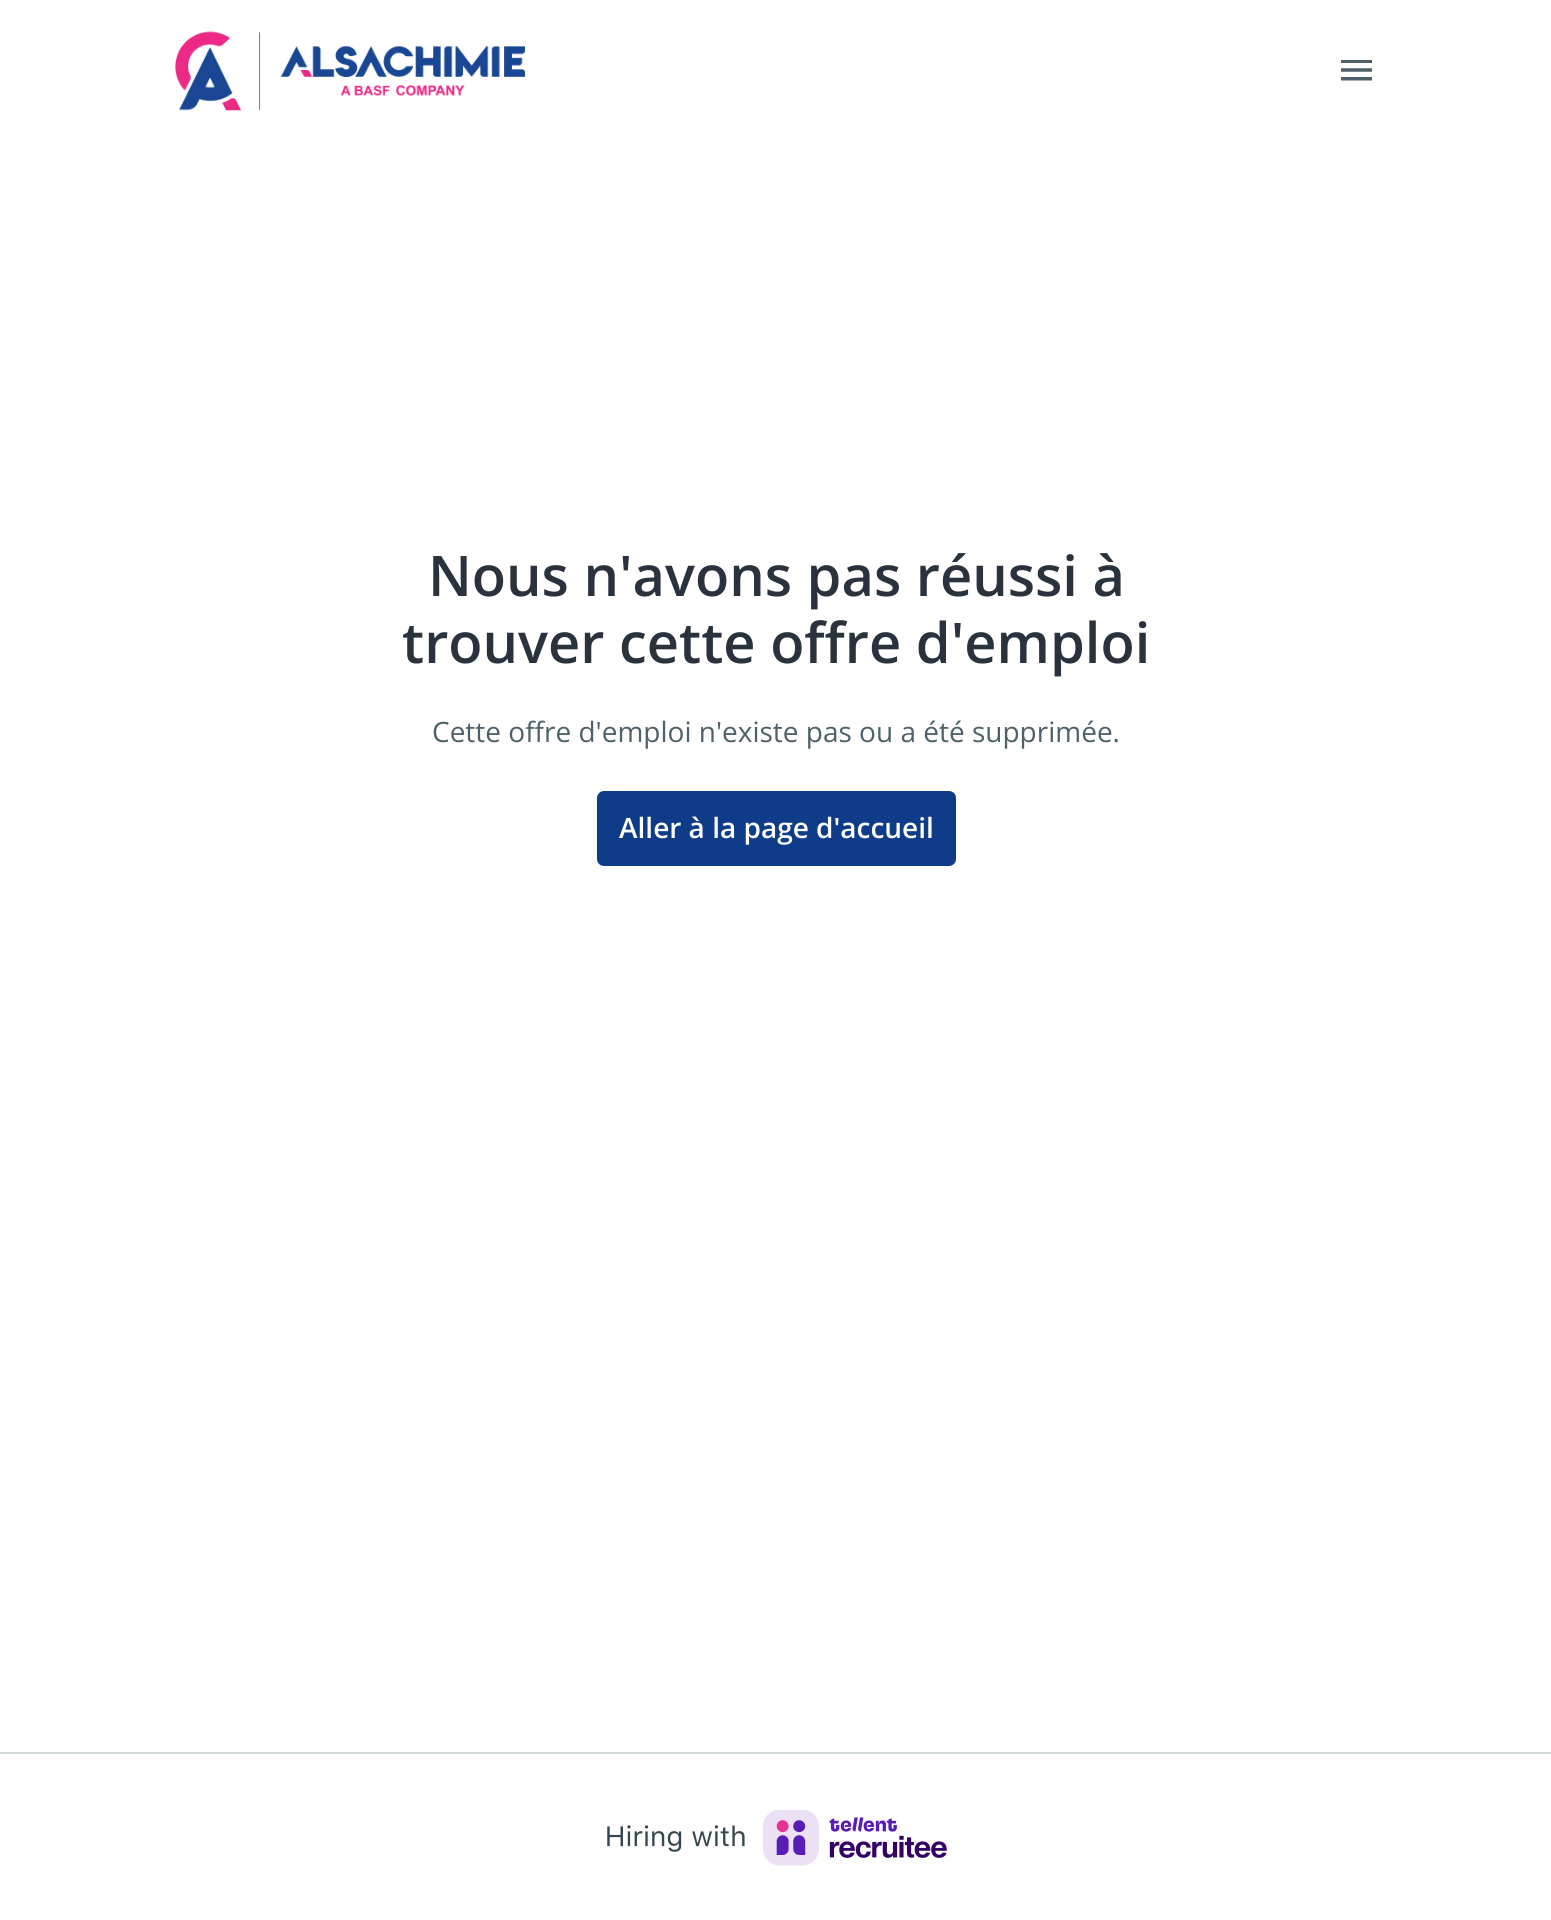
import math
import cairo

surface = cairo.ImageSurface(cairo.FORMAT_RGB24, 1551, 1920)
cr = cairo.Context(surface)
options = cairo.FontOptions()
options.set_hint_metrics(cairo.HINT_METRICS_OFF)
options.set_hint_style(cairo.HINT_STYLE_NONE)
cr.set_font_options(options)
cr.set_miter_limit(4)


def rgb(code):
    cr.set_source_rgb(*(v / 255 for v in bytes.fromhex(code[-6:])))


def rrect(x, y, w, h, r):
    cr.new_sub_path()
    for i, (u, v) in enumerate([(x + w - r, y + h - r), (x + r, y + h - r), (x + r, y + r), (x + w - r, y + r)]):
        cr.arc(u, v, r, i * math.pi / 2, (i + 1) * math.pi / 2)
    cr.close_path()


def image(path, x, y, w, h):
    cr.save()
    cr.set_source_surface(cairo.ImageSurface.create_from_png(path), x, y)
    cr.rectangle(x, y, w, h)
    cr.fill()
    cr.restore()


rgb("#ffffff")
cr.paint()
image("img/1.png", 175, 31, 350, 80)
image("img/2.png", 1341, 60, 31, 21)
rgb("#0e3c88")
rrect(598, 792, 357, 73, 6)
cr.fill_preserve()
cr.stroke()
rgb("#d3d8da")
cr.rectangle(0, 1752, 1551, 2)
cr.fill()
image("img/3.png", 607, 1810, 340, 56)
cr.select_font_face("Open Sans SemiBold")
cr.set_font_size(56)
rgb("#2a333d")
cr.move_to(428, 596)
cr.show_text("Nous n'avons pas réussi à")
cr.move_to(402, 663)
cr.show_text("trouver cette offre d'emploi")
cr.select_font_face("Open Sans")
cr.set_font_size(28)
rgb("#4e616a")
cr.move_to(432, 742)
cr.show_text("Cette offre d'emploi n'existe pas ou a été supprimée.")
cr.select_font_face("Open Sans SemiBold")
rgb("#ffffff")
cr.move_to(619, 838)
cr.show_text("Aller à la page d'accueil")
surface.write_to_png("page.png")
